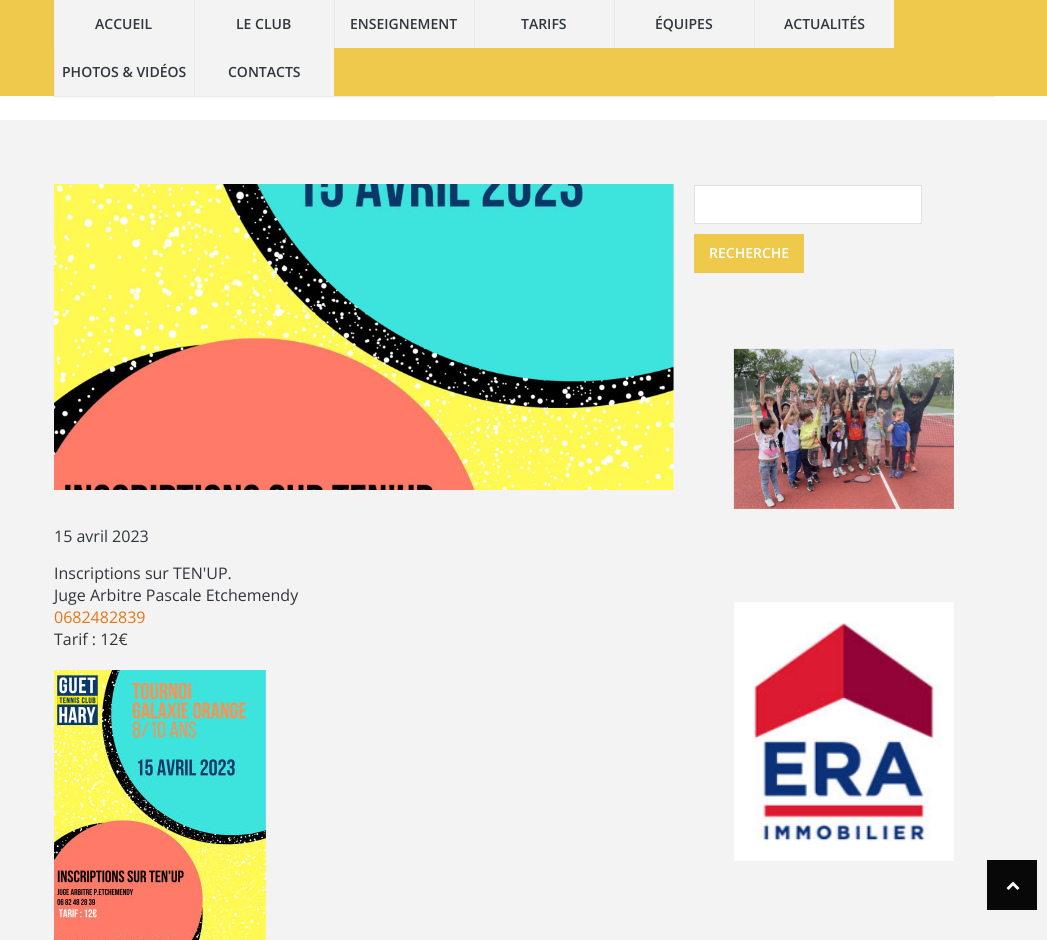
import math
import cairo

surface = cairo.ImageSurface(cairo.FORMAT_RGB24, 1047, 940)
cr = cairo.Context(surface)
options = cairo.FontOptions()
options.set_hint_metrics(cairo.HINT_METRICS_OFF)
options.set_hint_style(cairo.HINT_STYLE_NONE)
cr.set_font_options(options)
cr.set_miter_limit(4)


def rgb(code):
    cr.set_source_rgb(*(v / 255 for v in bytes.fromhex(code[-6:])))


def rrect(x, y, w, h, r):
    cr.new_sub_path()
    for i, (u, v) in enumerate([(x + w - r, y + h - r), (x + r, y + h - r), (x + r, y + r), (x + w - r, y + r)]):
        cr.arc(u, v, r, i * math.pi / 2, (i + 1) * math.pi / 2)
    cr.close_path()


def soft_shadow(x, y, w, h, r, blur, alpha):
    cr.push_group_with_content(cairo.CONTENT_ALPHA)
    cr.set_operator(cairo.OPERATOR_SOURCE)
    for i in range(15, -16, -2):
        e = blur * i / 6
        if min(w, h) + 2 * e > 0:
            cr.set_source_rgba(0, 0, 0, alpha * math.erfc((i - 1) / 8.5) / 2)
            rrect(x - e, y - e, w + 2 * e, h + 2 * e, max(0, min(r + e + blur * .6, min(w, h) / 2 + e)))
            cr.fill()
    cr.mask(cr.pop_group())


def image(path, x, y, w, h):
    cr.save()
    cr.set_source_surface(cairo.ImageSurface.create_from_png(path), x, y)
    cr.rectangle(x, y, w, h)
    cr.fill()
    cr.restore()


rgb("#f3f3f3")
cr.paint()
rgb("#ffffff")
cr.rectangle(0, 96, 1047, 24)
cr.fill()
rgb("#000000")
soft_shadow(54, 0, 940, 96, 0, 1.5, 0.2)
for x, y, w, h, color in [
    (334, 0, 713, 96, "#efc94c"),
    (0, 0, 54, 96, "#efc94c"),
    (54, 0, 140, 48, "#f3f3f3"),
    (195, 0, 139, 96, "#f3f3f3"),
    (194, 0, 1, 96, "#e8e8e8"),
    (335, 0, 139, 48, "#f3f3f3"),
    (334, 0, 1, 48, "#e8e8e8"),
    (475, 0, 139, 48, "#f3f3f3"),
    (474, 0, 1, 48, "#e8e8e8"),
    (615, 0, 139, 48, "#f3f3f3"),
    (614, 0, 1, 48, "#e8e8e8"),
    (755, 0, 139, 48, "#f3f3f3"),
    (754, 0, 1, 48, "#e8e8e8"),
    (55, 48, 139, 48, "#f3f3f3"),
    (54, 48, 1, 48, "#e8e8e8"),
]:
    rgb(color)
    cr.rectangle(x, y, w, h)
    cr.fill()
rgb("#ffffff")
cr.rectangle(694.5, 185.5, 227, 38)
cr.fill_preserve()
rgb("#e1e0e0")
cr.set_line_width(1)
cr.stroke()
rgb("#efc94c")
cr.rectangle(694, 234, 110, 39)
cr.fill()
image("img/1.png", 733, 348, 221, 161)
image("img/2.png", 734, 602, 220, 259)
image("img/3.png", 54, 184, 620, 306)
image("img/4.png", 54, 670, 212, 270)
rgb("#080808")
cr.rectangle(987, 860, 50, 50)
cr.fill()
image("img/5.png", 1006, 881, 14, 9)
cr.select_font_face("Open Sans SemiBold")
cr.set_font_size(14)
rgb("#31353d")
for x, y, s in [
    (95, 29, "ACCUEIL"),
    (236, 29, "LE CLUB"),
    (350, 29, "ENSEIGNEMENT"),
    (521, 29, "TARIFS"),
    (655, 29, "ÉQUIPES"),
    (784, 29, "ACTUALITÉS"),
    (62, 77, "PHOTOS & VIDÉOS"),
    (228, 77, "CONTACTS"),
]:
    cr.move_to(x, y)
    cr.show_text(s)
rgb("#ffffff")
cr.move_to(709, 258)
cr.show_text("RECHERCHE")
cr.select_font_face("Open Sans")
cr.set_font_size(16)
rgb("#31353d")
for x, y, s in [
    (54, 542, "15 avril 2023"),
    (54, 579, "Inscriptions sur TEN'UP."),
    (54, 601, "Juge Arbitre Pascale Etchemendy"),
]:
    cr.move_to(x, y)
    cr.show_text(s)
rgb("#e57614")
cr.move_to(54, 623)
cr.show_text("0682482839")
rgb("#31353d")
cr.move_to(54, 645)
cr.show_text("Tarif : 12€")
surface.write_to_png("page.png")
